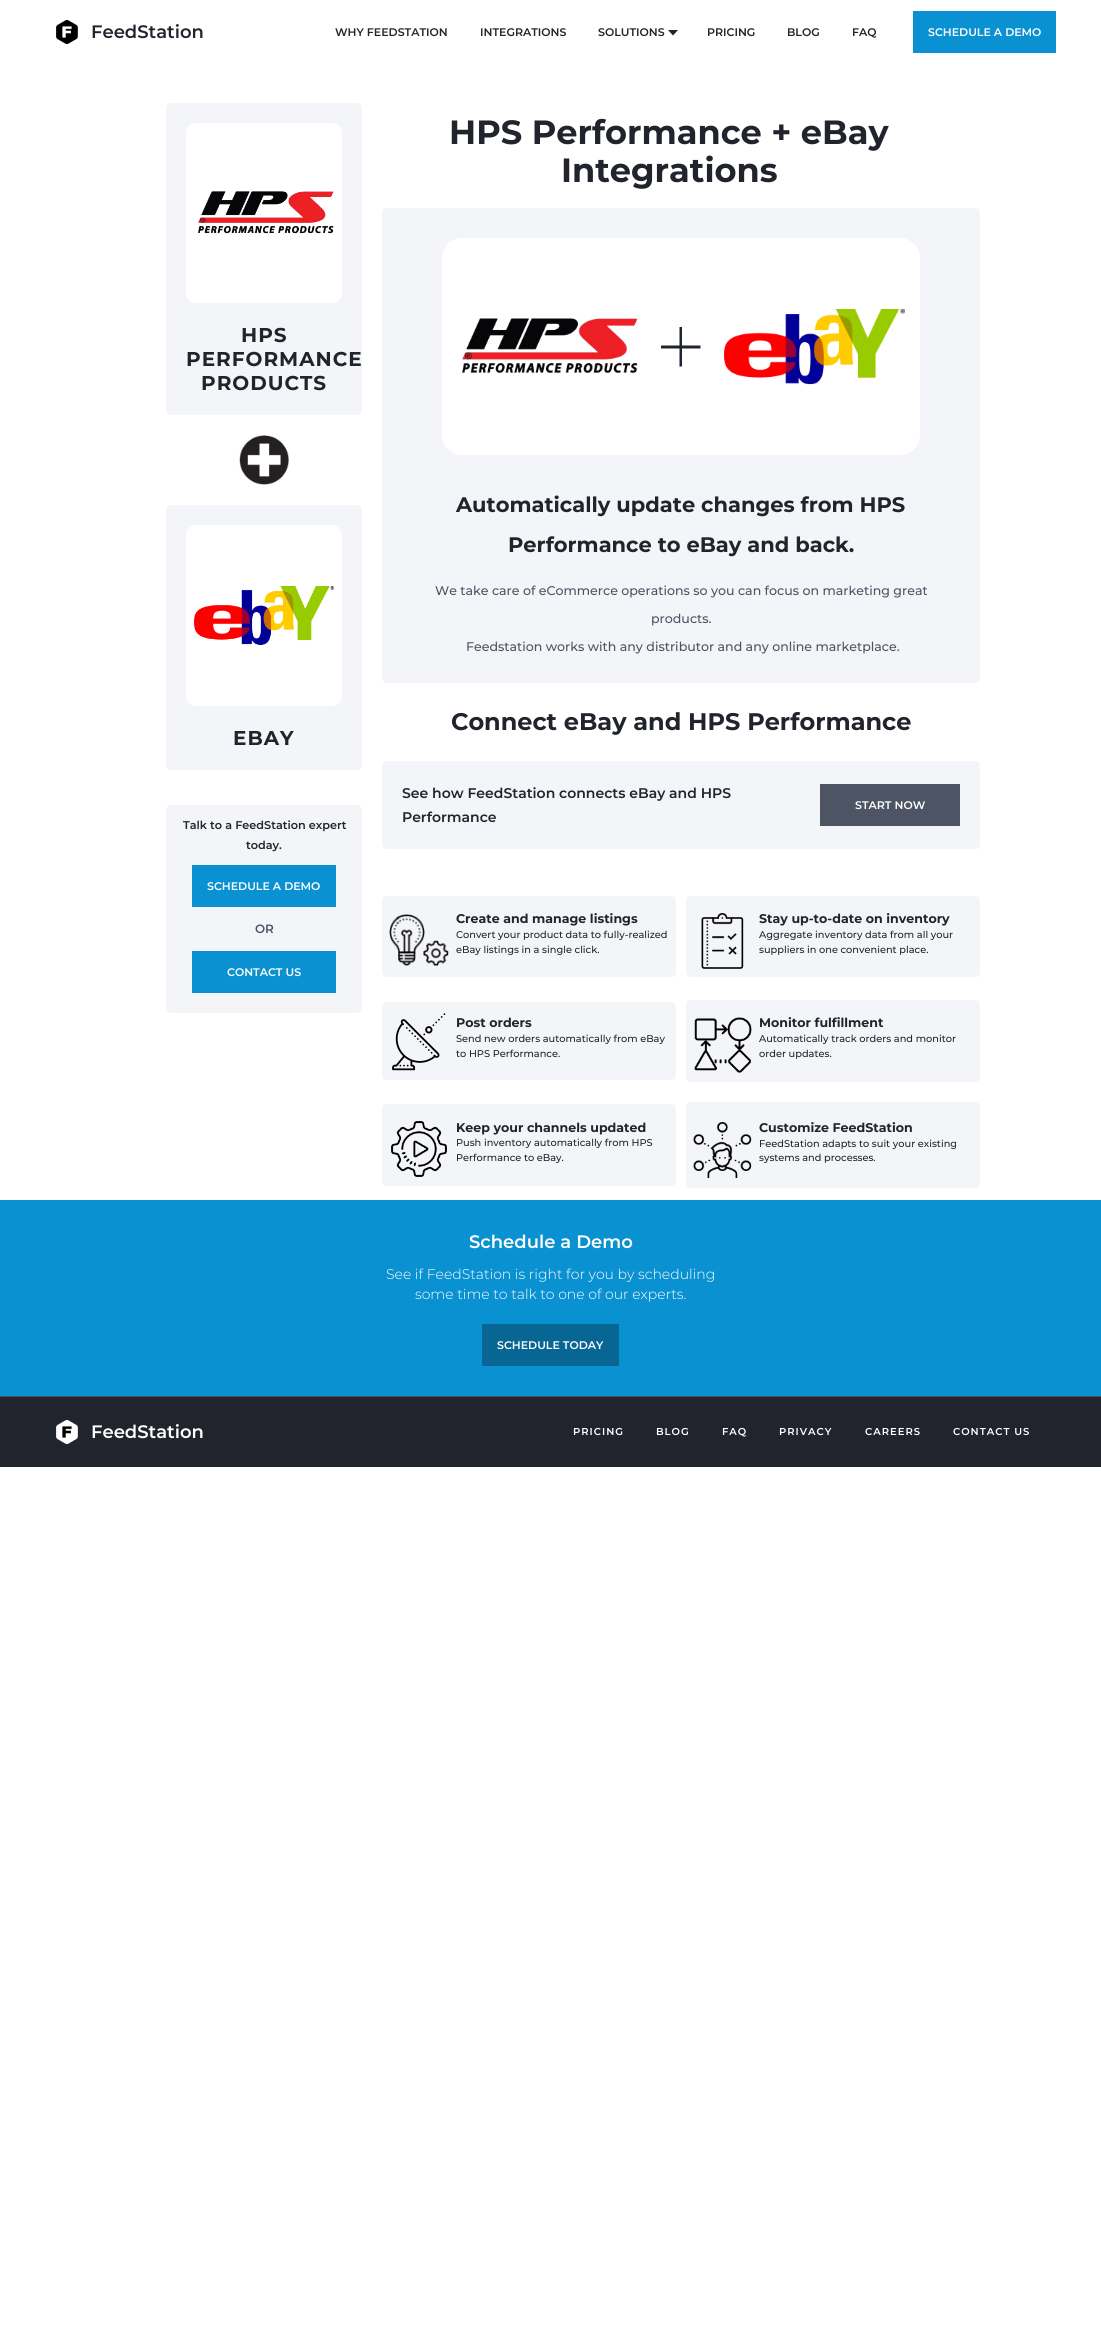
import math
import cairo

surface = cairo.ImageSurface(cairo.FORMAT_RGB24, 1101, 2339)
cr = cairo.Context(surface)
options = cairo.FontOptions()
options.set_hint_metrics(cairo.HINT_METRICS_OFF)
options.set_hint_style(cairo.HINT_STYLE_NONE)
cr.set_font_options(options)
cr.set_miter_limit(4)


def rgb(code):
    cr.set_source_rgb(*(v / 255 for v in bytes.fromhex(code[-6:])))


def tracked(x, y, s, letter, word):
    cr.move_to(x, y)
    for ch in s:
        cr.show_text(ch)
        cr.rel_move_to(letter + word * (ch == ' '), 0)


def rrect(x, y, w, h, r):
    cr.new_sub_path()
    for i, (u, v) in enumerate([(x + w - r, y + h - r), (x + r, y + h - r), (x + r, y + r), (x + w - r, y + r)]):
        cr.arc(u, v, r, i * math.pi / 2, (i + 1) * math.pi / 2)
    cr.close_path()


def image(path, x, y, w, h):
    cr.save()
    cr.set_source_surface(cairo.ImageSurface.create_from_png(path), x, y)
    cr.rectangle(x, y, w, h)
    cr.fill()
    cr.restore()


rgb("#ffffff")
cr.paint()
image("img/1.png", 56, 20, 22, 24)
rgb("#20242e")
cr.new_path()
cr.move_to(668, 30)
cr.line_to(673, 35.5)
cr.line_to(678, 30)
cr.close_path()
cr.fill()
rgb("#0a91d2")
cr.rectangle(913, 11, 143, 42)
cr.fill()
rgb("#f4f5f8")
rrect(166, 103, 196, 312, 5)
cr.fill()
rgb("#ffffff")
rrect(186, 123, 156, 180, 10)
cr.fill()
image("img/2.png", 198, 191, 136, 43)
image("img/3.png", 239, 435, 50, 50)
rgb("#f4f5f8")
rrect(166, 505, 196, 265, 5)
cr.fill()
rgb("#ffffff")
rrect(186, 525, 156, 181, 10)
cr.fill()
image("img/4.png", 194, 586, 140, 59)
rgb("#f4f5f8")
rrect(166, 805, 196, 208, 5)
cr.fill()
rgb("#0a91d2")
cr.rectangle(192, 865, 144, 42)
cr.fill()
cr.rectangle(192, 951, 144, 42)
cr.fill()
rgb("#f4f5f8")
rrect(382, 208, 598, 475, 5)
cr.fill()
rgb("#ffffff")
rrect(442, 238, 478, 217, 20)
cr.fill()
image("img/5.png", 462, 318, 176, 56)
rgb("#20242e")
cr.set_fill_rule(cairo.FILL_RULE_EVEN_ODD)
cr.new_path()
cr.move_to(682, 345.5)
cr.line_to(700.5, 345.5)
cr.line_to(700.5, 348.5)
cr.line_to(682, 348.5)
cr.line_to(682, 366.5)
cr.line_to(679.5, 366.5)
cr.line_to(679.5, 348.5)
cr.line_to(661, 348.5)
cr.line_to(661, 345.5)
cr.line_to(679.5, 345.5)
cr.line_to(679.5, 327)
cr.line_to(682, 327)
cr.close_path()
cr.fill()
image("img/6.png", 724, 309, 181, 76)
rgb("#f4f5f8")
rrect(382, 761, 598, 88, 5)
cr.fill()
rgb("#4d5464")
cr.rectangle(820, 784, 140, 42)
cr.fill()
rgb("#f4f5f8")
rrect(382, 896, 294, 81, 5)
cr.fill()
image("img/7.png", 389, 914, 60, 52)
rrect(686, 896, 294, 81, 5)
cr.fill()
image("img/8.png", 701, 913, 43, 56)
rrect(382, 1002, 294, 78, 5)
cr.fill()
image("img/9.png", 392, 1013, 54, 58)
rrect(686, 1000, 294, 82, 5)
cr.fill()
image("img/10.png", 694, 1017, 58, 56)
rrect(382, 1104, 294, 82, 5)
cr.fill()
image("img/11.png", 391, 1121, 56, 56)
rrect(686, 1102, 294, 86, 5)
cr.fill()
image("img/12.png", 693, 1122, 59, 56)
for x, y, w, h, color in [
    (0, 1200, 1101, 196, "#0a91d2"),
    (482, 1324, 137, 42, "#076693"),
    (0, 1397, 1101, 70, "#21242d"),
    (0, 1396, 1101, 1, "#4d5057"),
]:
    rgb(color)
    cr.rectangle(x, y, w, h)
    cr.fill()
image("img/13.png", 56, 1420, 22, 24)
cr.select_font_face("Montserrat SemiBold")
cr.set_font_size(18)
rgb("#21242d")
cr.move_to(91, 38)
cr.show_text("FeedStation")
cr.set_font_size(11)
for x, y, s in [
    (335, 36, "WHY FEEDSTATION"),
    (480, 36, "INTEGRATIONS"),
    (598, 36, "SOLUTIONS"),
    (707, 36, "PRICING"),
    (787, 36, "BLOG"),
    (852, 36, "FAQ"),
]:
    cr.move_to(x, y)
    cr.show_text(s)
rgb("#ffffff")
cr.move_to(928, 36)
cr.show_text("SCHEDULE A DEMO")
cr.select_font_face("Montserrat", cairo.FONT_SLANT_NORMAL, cairo.FONT_WEIGHT_BOLD)
cr.set_font_size(20)
rgb("#21242d")
for x, y, s in [
    (241, 342, "HPS"),
    (186, 366, "PERFORMANCE"),
    (201, 390, "PRODUCTS"),
    (233, 745, "EBAY"),
]:
    tracked(x, y, s, 1, 0)
cr.select_font_face("Montserrat SemiBold")
cr.set_font_size(11.25)
cr.move_to(183, 829)
cr.show_text("Talk to a FeedStation expert")
cr.move_to(246, 849)
cr.show_text("today.")
cr.set_font_size(11)
rgb("#ffffff")
cr.move_to(207, 890)
cr.show_text("SCHEDULE A DEMO")
cr.set_font_size(12)
rgb("#4d5464")
cr.move_to(255, 933)
cr.show_text("OR")
cr.set_font_size(11)
rgb("#ffffff")
cr.move_to(227, 976)
cr.show_text("CONTACT US")
cr.select_font_face("Montserrat", cairo.FONT_SLANT_NORMAL, cairo.FONT_WEIGHT_BOLD)
cr.set_font_size(33.6)
rgb("#21242d")
cr.move_to(449, 144)
cr.show_text("HPS Performance + eBay")
cr.move_to(561, 182)
cr.show_text("Integrations")
cr.set_font_size(21)
cr.move_to(456, 512)
cr.show_text("Automatically update changes from HPS")
cr.move_to(508, 552)
cr.show_text("Performance to eBay and back.")
cr.select_font_face("Montserrat Medium")
cr.set_font_size(12.6)
rgb("#4d5464")
for x, y, s in [
    (435, 595, "We take care of eCommerce operations so you can focus on marketing great"),
    (651, 623, "products."),
    (466, 651, "Feedstation works with any distributor and any online marketplace."),
]:
    cr.move_to(x, y)
    cr.show_text(s)
cr.select_font_face("Montserrat", cairo.FONT_SLANT_NORMAL, cairo.FONT_WEIGHT_BOLD)
cr.set_font_size(24)
rgb("#21242d")
cr.move_to(451, 730)
cr.show_text("Connect eBay and HPS Performance")
cr.select_font_face("Montserrat SemiBold")
cr.set_font_size(14)
cr.move_to(402, 798)
cr.show_text("See how FeedStation connects eBay and HPS")
cr.move_to(402, 822)
cr.show_text("Performance")
cr.set_font_size(11)
rgb("#ffffff")
cr.move_to(855, 809)
cr.show_text("START NOW")
cr.select_font_face("Montserrat", cairo.FONT_SLANT_NORMAL, cairo.FONT_WEIGHT_BOLD)
cr.set_font_size(12.6)
rgb("#21242d")
cr.move_to(456, 923)
cr.show_text("Create and manage listings")
cr.select_font_face("Montserrat Medium")
cr.set_font_size(9.8)
cr.move_to(456, 938)
cr.show_text("Convert your product data to fully-realized")
cr.move_to(456, 953)
cr.show_text("eBay listings in a single click.")
cr.select_font_face("Montserrat", cairo.FONT_SLANT_NORMAL, cairo.FONT_WEIGHT_BOLD)
cr.set_font_size(12.6)
cr.move_to(759, 923)
cr.show_text("Stay up-to-date on inventory")
cr.select_font_face("Montserrat Medium")
cr.set_font_size(9.8)
cr.move_to(759, 938)
cr.show_text("Aggregate inventory data from all your")
cr.move_to(759, 953)
cr.show_text("suppliers in one convenient place.")
cr.select_font_face("Montserrat", cairo.FONT_SLANT_NORMAL, cairo.FONT_WEIGHT_BOLD)
cr.set_font_size(12.6)
cr.move_to(456, 1027)
cr.show_text("Post orders")
cr.select_font_face("Montserrat Medium")
cr.set_font_size(9.8)
cr.move_to(456, 1042)
cr.show_text("Send new orders automatically from eBay")
cr.move_to(456, 1057)
cr.show_text("to HPS Performance.")
cr.select_font_face("Montserrat", cairo.FONT_SLANT_NORMAL, cairo.FONT_WEIGHT_BOLD)
cr.set_font_size(12.6)
cr.move_to(759, 1027)
cr.show_text("Monitor fulfillment")
cr.select_font_face("Montserrat Medium")
cr.set_font_size(9.8)
cr.move_to(759, 1042)
cr.show_text("Automatically track orders and monitor")
cr.move_to(759, 1057)
cr.show_text("order updates.")
cr.select_font_face("Montserrat", cairo.FONT_SLANT_NORMAL, cairo.FONT_WEIGHT_BOLD)
cr.set_font_size(12.6)
cr.move_to(456, 1132)
cr.show_text("Keep your channels updated")
cr.select_font_face("Montserrat Medium")
cr.set_font_size(9.8)
cr.move_to(456, 1146)
cr.show_text("Push inventory automatically from HPS")
cr.move_to(456, 1161)
cr.show_text("Performance to eBay.")
cr.select_font_face("Montserrat", cairo.FONT_SLANT_NORMAL, cairo.FONT_WEIGHT_BOLD)
cr.set_font_size(12.6)
cr.move_to(759, 1132)
cr.show_text("Customize FeedStation")
cr.select_font_face("Montserrat Medium")
cr.set_font_size(9.8)
cr.move_to(759, 1147)
cr.show_text("FeedStation adapts to suit your existing")
cr.move_to(759, 1161)
cr.show_text("systems and processes.")
cr.select_font_face("Montserrat SemiBold")
cr.set_font_size(18)
rgb("#ffffff")
cr.move_to(469, 1248)
cr.show_text("Schedule a Demo")
cr.select_font_face("Montserrat Light")
cr.set_font_size(14)
cr.move_to(386, 1279)
cr.show_text("See if FeedStation is right for you by scheduling")
cr.move_to(415, 1299)
cr.show_text("some time to talk to one of our experts.")
cr.select_font_face("Montserrat SemiBold")
cr.set_font_size(11)
cr.move_to(497, 1349)
cr.show_text("SCHEDULE TODAY")
cr.set_font_size(18)
cr.move_to(91, 1438)
cr.show_text("FeedStation")
cr.set_font_size(10)
for x, y, s in [
    (573, 1435, "PRICING"),
    (656, 1435, "BLOG"),
    (722, 1435, "FAQ"),
    (779, 1435, "PRIVACY"),
    (865, 1435, "CAREERS"),
    (953, 1435, "CONTACT US"),
]:
    tracked(x, y, s, 1, 0)
surface.write_to_png("page.png")
